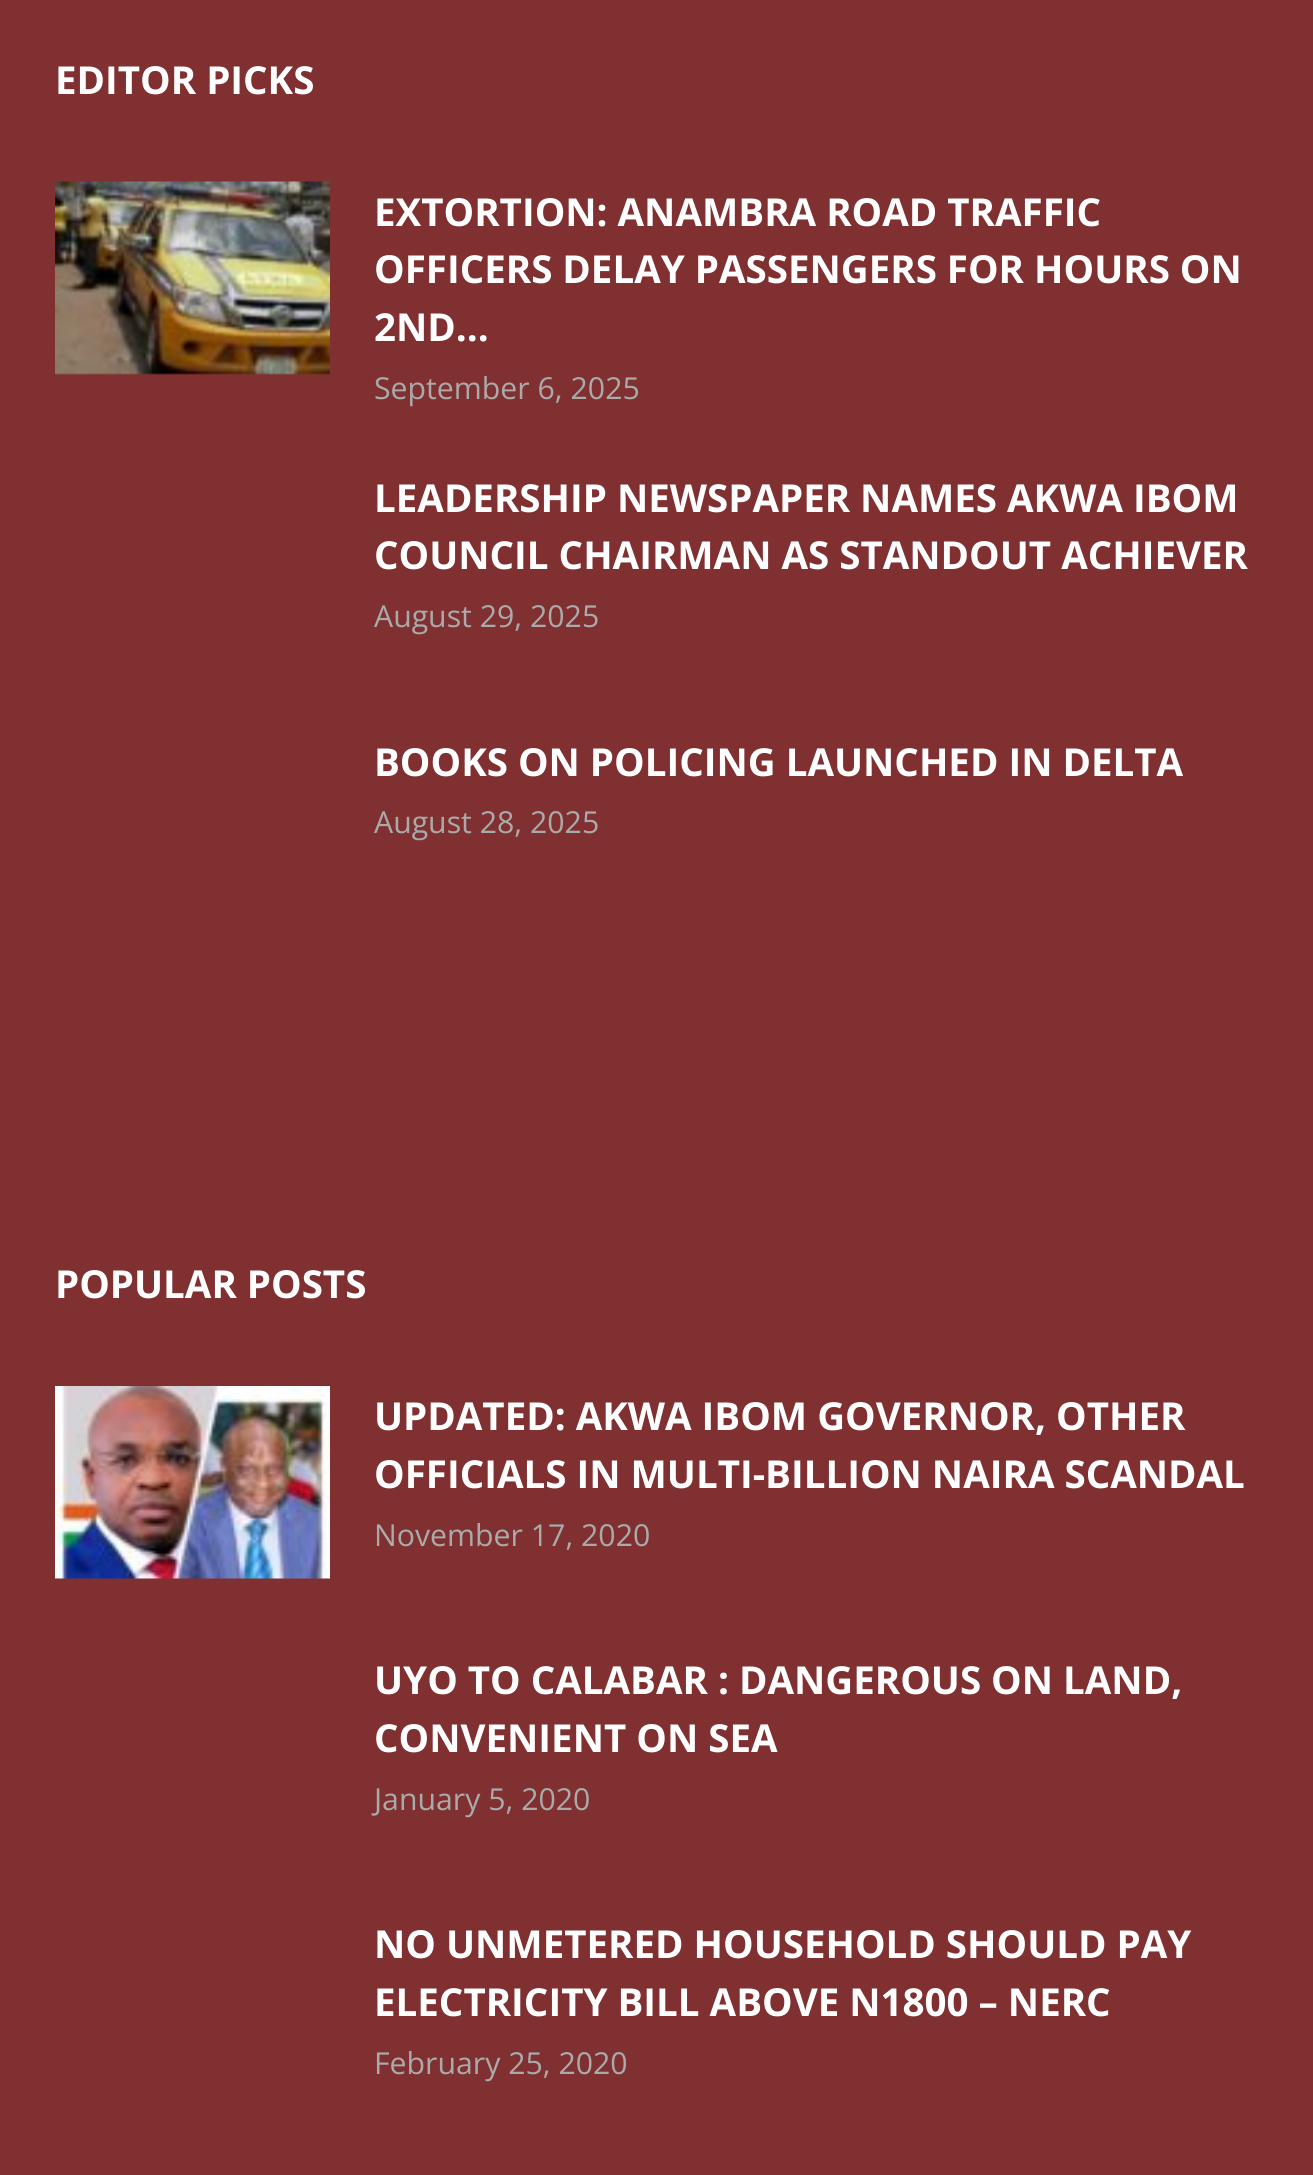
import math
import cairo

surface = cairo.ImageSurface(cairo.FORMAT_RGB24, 1313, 2175)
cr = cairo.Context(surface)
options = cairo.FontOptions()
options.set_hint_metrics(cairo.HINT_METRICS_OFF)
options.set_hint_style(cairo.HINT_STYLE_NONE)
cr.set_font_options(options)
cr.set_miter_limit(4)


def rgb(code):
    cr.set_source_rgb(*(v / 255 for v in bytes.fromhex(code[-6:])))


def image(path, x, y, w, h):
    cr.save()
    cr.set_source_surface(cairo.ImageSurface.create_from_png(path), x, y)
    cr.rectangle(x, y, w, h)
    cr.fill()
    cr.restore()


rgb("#803031")
cr.paint()
image("img/1.png", 55, 181, 275, 194)
image("img/2.png", 55, 1386, 275, 193)
cr.select_font_face("Open Sans", cairo.FONT_SLANT_NORMAL, cairo.FONT_WEIGHT_BOLD)
cr.set_font_size(38.5)
rgb("#ffffff")
for x, y, s in [
    (55, 94, "EDITOR PICKS"),
    (374, 226, "EXTORTION: ANAMBRA ROAD TRAFFIC"),
    (374, 283, "OFFICERS DELAY PASSENGERS FOR HOURS ON"),
    (374, 341, "2ND..."),
]:
    cr.move_to(x, y)
    cr.show_text(s)
cr.select_font_face("Open Sans")
cr.set_font_size(30.25)
rgb("#aaaaaa")
cr.move_to(374, 399)
cr.show_text("September 6, 2025")
cr.select_font_face("Open Sans", cairo.FONT_SLANT_NORMAL, cairo.FONT_WEIGHT_BOLD)
cr.set_font_size(38.5)
rgb("#ffffff")
cr.move_to(374, 512)
cr.show_text("LEADERSHIP NEWSPAPER NAMES AKWA IBOM")
cr.move_to(374, 569)
cr.show_text("COUNCIL CHAIRMAN AS STANDOUT ACHIEVER")
cr.select_font_face("Open Sans")
cr.set_font_size(30.25)
rgb("#aaaaaa")
cr.move_to(374, 627)
cr.show_text("August 29, 2025")
cr.select_font_face("Open Sans", cairo.FONT_SLANT_NORMAL, cairo.FONT_WEIGHT_BOLD)
cr.set_font_size(38.5)
rgb("#ffffff")
cr.move_to(374, 776)
cr.show_text("BOOKS ON POLICING LAUNCHED IN DELTA")
cr.select_font_face("Open Sans")
cr.set_font_size(30.25)
rgb("#aaaaaa")
cr.move_to(374, 833)
cr.show_text("August 28, 2025")
cr.select_font_face("Open Sans", cairo.FONT_SLANT_NORMAL, cairo.FONT_WEIGHT_BOLD)
cr.set_font_size(38.5)
rgb("#ffffff")
for x, y, s in [
    (55, 1298, "POPULAR POSTS"),
    (374, 1430, "UPDATED: AKWA IBOM GOVERNOR, OTHER"),
    (374, 1488, "OFFICIALS IN MULTI-BILLION NAIRA SCANDAL"),
]:
    cr.move_to(x, y)
    cr.show_text(s)
cr.select_font_face("Open Sans")
cr.set_font_size(30.25)
rgb("#aaaaaa")
cr.move_to(374, 1546)
cr.show_text("November 17, 2020")
cr.select_font_face("Open Sans", cairo.FONT_SLANT_NORMAL, cairo.FONT_WEIGHT_BOLD)
cr.set_font_size(38.5)
rgb("#ffffff")
cr.move_to(374, 1694)
cr.show_text("UYO TO CALABAR : DANGEROUS ON LAND,")
cr.move_to(374, 1752)
cr.show_text("CONVENIENT ON SEA")
cr.select_font_face("Open Sans")
cr.set_font_size(30.25)
rgb("#aaaaaa")
cr.move_to(374, 1810)
cr.show_text("January 5, 2020")
cr.select_font_face("Open Sans", cairo.FONT_SLANT_NORMAL, cairo.FONT_WEIGHT_BOLD)
cr.set_font_size(38.5)
rgb("#ffffff")
cr.move_to(374, 1958)
cr.show_text("NO UNMETERED HOUSEHOLD SHOULD PAY")
cr.move_to(374, 2016)
cr.show_text("ELECTRICITY BILL ABOVE N1800 – NERC")
cr.select_font_face("Open Sans")
cr.set_font_size(30.25)
rgb("#aaaaaa")
cr.move_to(374, 2074)
cr.show_text("February 25, 2020")
surface.write_to_png("page.png")
